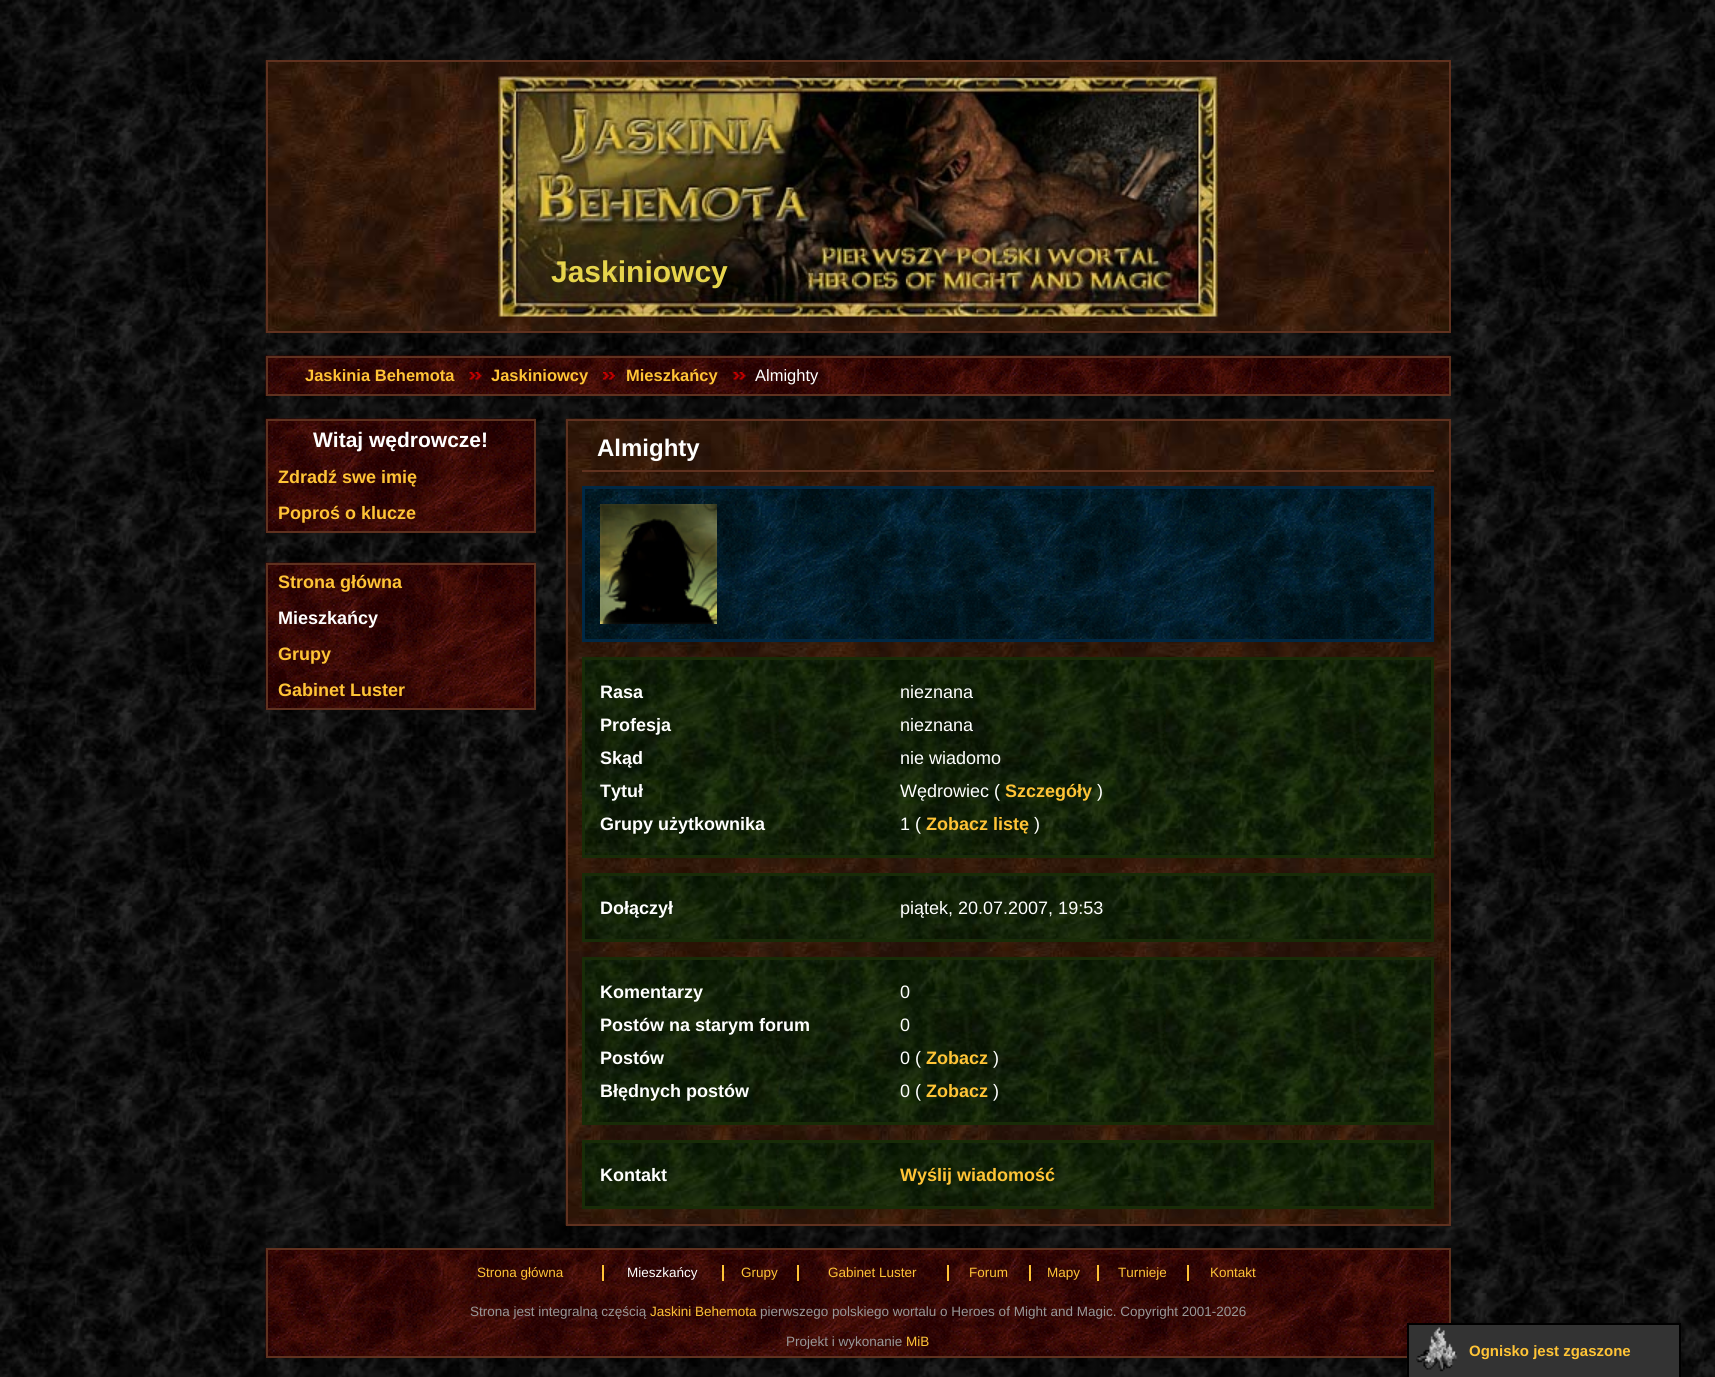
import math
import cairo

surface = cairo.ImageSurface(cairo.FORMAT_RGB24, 1715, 1377)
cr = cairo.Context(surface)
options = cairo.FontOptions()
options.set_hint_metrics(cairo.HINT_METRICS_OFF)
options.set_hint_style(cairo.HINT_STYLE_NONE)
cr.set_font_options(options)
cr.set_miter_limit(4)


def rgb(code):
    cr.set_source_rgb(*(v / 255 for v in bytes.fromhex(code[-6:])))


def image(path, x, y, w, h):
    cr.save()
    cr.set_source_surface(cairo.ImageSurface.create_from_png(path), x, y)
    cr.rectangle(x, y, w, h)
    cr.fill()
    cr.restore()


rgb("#ffffff")
cr.paint()
image("img/1.png", 0, 0, 1715, 1377)
image("img/2.png", 0, 60, 1715, 1298)
image("img/3.png", 265, 60, 1184, 273)
cr.rectangle(267, 61, 1183, 271)
rgb("#5f311f")
cr.stroke()
image("img/4.png", 498, 76, 720, 241)
image("img/5.png", 265, 355, 1186, 41)
cr.rectangle(267, 357, 1183, 38)
cr.stroke()
image("img/6.png", 469, 372, 13, 8)
image("img/7.png", 603, 372, 12, 8)
image("img/8.png", 733, 372, 13, 8)
image("img/9.png", 265, 418, 271, 115)
cr.rectangle(267, 420, 268, 112)
cr.stroke()
image("img/10.png", 265, 562, 271, 148)
cr.rectangle(267, 564, 268, 145)
cr.stroke()
image("img/11.png", 565, 418, 886, 808)
cr.rectangle(567, 420, 883, 805)
cr.stroke()
cr.rectangle(582, 470, 852, 2)
cr.fill()
image("img/12.png", 585, 489, 846, 150)
cr.rectangle(583.5, 487.5, 849, 153)
rgb("#002845")
cr.set_line_width(3)
cr.stroke()
image("img/13.png", 600, 504, 117, 120)
image("img/14.png", 585, 660, 846, 195)
cr.rectangle(583.5, 658.5, 849, 198)
rgb("#182c08")
cr.stroke()
image("img/15.png", 585, 876, 846, 63)
cr.rectangle(583.5, 874.5, 849, 66)
cr.stroke()
image("img/16.png", 585, 960, 846, 162)
cr.rectangle(583.5, 958.5, 849, 165)
cr.stroke()
image("img/15.png", 585, 1143, 846, 63)
cr.rectangle(583.5, 1141.5, 849, 66)
cr.stroke()
image("img/17.png", 265, 1248, 1184, 110)
cr.rectangle(267, 1249, 1183, 108)
rgb("#5f311f")
cr.set_line_width(2)
cr.stroke()
for x, y, w, h, color in [
    (602, 1265, 2, 16, "#ffc436"),
    (722, 1265, 2, 16, "#ffc436"),
    (797, 1265, 2, 16, "#ffc436"),
    (947, 1265, 2, 16, "#ffc436"),
    (1029, 1265, 2, 16, "#ffc436"),
    (1097, 1265, 2, 16, "#ffc436"),
    (1187, 1265, 2, 16, "#ffc436"),
    (1409, 1325, 270, 52, "#333333"),
    (1407, 1323, 273, 2, "#000000"),
    (1679, 1323, 2, 54, "#000000"),
    (1407, 1323, 2, 54, "#000000"),
]:
    rgb(color)
    cr.rectangle(x, y, w, h)
    cr.fill()
image("img/18.png", 1416, 1327, 42, 45)
cr.select_font_face("Liberation Sans", cairo.FONT_SLANT_NORMAL, cairo.FONT_WEIGHT_BOLD)
cr.set_font_size(30)
rgb("#e6d44c")
cr.move_to(551, 282)
cr.show_text("Jaskiniowcy")
cr.set_font_size(16.5)
rgb("#ffc436")
for x, y, s in [
    (305, 381, "Jaskinia Behemota"),
    (491, 381, "Jaskiniowcy"),
    (626, 381, "Mieszkańcy"),
]:
    cr.move_to(x, y)
    cr.show_text(s)
cr.select_font_face("Liberation Sans")
rgb("#ffffff")
cr.move_to(755, 381)
cr.show_text("Almighty")
cr.select_font_face("Liberation Sans", cairo.FONT_SLANT_NORMAL, cairo.FONT_WEIGHT_BOLD)
cr.set_font_size(21)
cr.move_to(313, 447)
cr.show_text("Witaj wędrowcze!")
cr.set_font_size(18)
rgb("#ffc436")
for x, y, s in [
    (278, 483, "Zdradź swe imię"),
    (278, 519, "Poproś o klucze"),
    (278, 588, "Strona główna"),
]:
    cr.move_to(x, y)
    cr.show_text(s)
rgb("#ffffff")
cr.move_to(278, 624)
cr.show_text("Mieszkańcy")
rgb("#ffc436")
cr.move_to(278, 660)
cr.show_text("Grupy")
cr.move_to(278, 696)
cr.show_text("Gabinet Luster")
cr.set_font_size(24)
rgb("#ffffff")
cr.move_to(597, 456)
cr.show_text("Almighty")
cr.set_font_size(18)
cr.move_to(600, 698)
cr.show_text("Rasa")
cr.select_font_face("Liberation Sans")
cr.move_to(900, 698)
cr.show_text("nieznana")
cr.select_font_face("Liberation Sans", cairo.FONT_SLANT_NORMAL, cairo.FONT_WEIGHT_BOLD)
cr.move_to(600, 731)
cr.show_text("Profesja")
cr.select_font_face("Liberation Sans")
cr.move_to(900, 731)
cr.show_text("nieznana")
cr.select_font_face("Liberation Sans", cairo.FONT_SLANT_NORMAL, cairo.FONT_WEIGHT_BOLD)
cr.move_to(600, 764)
cr.show_text("Skąd")
cr.select_font_face("Liberation Sans")
cr.move_to(900, 764)
cr.show_text("nie wiadomo")
cr.select_font_face("Liberation Sans", cairo.FONT_SLANT_NORMAL, cairo.FONT_WEIGHT_BOLD)
cr.move_to(600, 797)
cr.show_text("Tytuł")
cr.select_font_face("Liberation Sans")
cr.move_to(900, 797)
cr.show_text("Wędrowiec (")
cr.select_font_face("Liberation Sans", cairo.FONT_SLANT_NORMAL, cairo.FONT_WEIGHT_BOLD)
rgb("#ffc436")
cr.move_to(1005, 797)
cr.show_text("Szczegóły")
cr.select_font_face("Liberation Sans")
rgb("#ffffff")
cr.move_to(1097, 797)
cr.show_text(")")
cr.select_font_face("Liberation Sans", cairo.FONT_SLANT_NORMAL, cairo.FONT_WEIGHT_BOLD)
cr.move_to(600, 830)
cr.show_text("Grupy użytkownika")
cr.select_font_face("Liberation Sans")
cr.move_to(900, 830)
cr.show_text("1 (")
cr.select_font_face("Liberation Sans", cairo.FONT_SLANT_NORMAL, cairo.FONT_WEIGHT_BOLD)
rgb("#ffc436")
cr.move_to(926, 830)
cr.show_text("Zobacz listę")
cr.select_font_face("Liberation Sans")
rgb("#ffffff")
cr.move_to(1034, 830)
cr.show_text(")")
cr.select_font_face("Liberation Sans", cairo.FONT_SLANT_NORMAL, cairo.FONT_WEIGHT_BOLD)
cr.move_to(600, 914)
cr.show_text("Dołączył")
cr.select_font_face("Liberation Sans")
cr.move_to(900, 914)
cr.show_text("piątek, 20.07.2007, 19:53")
cr.select_font_face("Liberation Sans", cairo.FONT_SLANT_NORMAL, cairo.FONT_WEIGHT_BOLD)
cr.move_to(600, 998)
cr.show_text("Komentarzy")
cr.select_font_face("Liberation Sans")
cr.move_to(900, 998)
cr.show_text("0")
cr.select_font_face("Liberation Sans", cairo.FONT_SLANT_NORMAL, cairo.FONT_WEIGHT_BOLD)
cr.move_to(600, 1031)
cr.show_text("Postów na starym forum")
cr.select_font_face("Liberation Sans")
cr.move_to(900, 1031)
cr.show_text("0")
cr.select_font_face("Liberation Sans", cairo.FONT_SLANT_NORMAL, cairo.FONT_WEIGHT_BOLD)
cr.move_to(600, 1064)
cr.show_text("Postów")
cr.select_font_face("Liberation Sans")
cr.move_to(900, 1064)
cr.show_text("0 (")
cr.select_font_face("Liberation Sans", cairo.FONT_SLANT_NORMAL, cairo.FONT_WEIGHT_BOLD)
rgb("#ffc436")
cr.move_to(926, 1064)
cr.show_text("Zobacz")
cr.select_font_face("Liberation Sans")
rgb("#ffffff")
cr.move_to(993, 1064)
cr.show_text(")")
cr.select_font_face("Liberation Sans", cairo.FONT_SLANT_NORMAL, cairo.FONT_WEIGHT_BOLD)
cr.move_to(600, 1097)
cr.show_text("Błędnych postów")
cr.select_font_face("Liberation Sans")
cr.move_to(900, 1097)
cr.show_text("0 (")
cr.select_font_face("Liberation Sans", cairo.FONT_SLANT_NORMAL, cairo.FONT_WEIGHT_BOLD)
rgb("#ffc436")
cr.move_to(926, 1097)
cr.show_text("Zobacz")
cr.select_font_face("Liberation Sans")
rgb("#ffffff")
cr.move_to(993, 1097)
cr.show_text(")")
cr.select_font_face("Liberation Sans", cairo.FONT_SLANT_NORMAL, cairo.FONT_WEIGHT_BOLD)
cr.move_to(600, 1181)
cr.show_text("Kontakt")
rgb("#ffc436")
cr.move_to(900, 1181)
cr.show_text("Wyślij wiadomość")
cr.select_font_face("Liberation Sans")
cr.set_font_size(13.5)
cr.move_to(477, 1277)
cr.show_text("Strona główna")
rgb("#ffffff")
cr.move_to(627, 1277)
cr.show_text("Mieszkańcy")
rgb("#ffc436")
for x, y, s in [
    (741, 1277, "Grupy"),
    (828, 1277, "Gabinet Luster"),
    (969, 1277, "Forum"),
    (1047, 1277, "Mapy"),
    (1118, 1277, "Turnieje"),
    (1210, 1277, "Kontakt"),
]:
    cr.move_to(x, y)
    cr.show_text(s)
rgb("#989898")
cr.move_to(470, 1316)
cr.show_text("Strona jest integralną częścią")
rgb("#ffc436")
cr.move_to(650, 1316)
cr.show_text("Jaskini Behemota")
rgb("#989898")
cr.move_to(760, 1316)
cr.show_text("pierwszego polskiego wortalu o Heroes of Might and Magic. Copyright 2001-2026")
cr.move_to(786, 1346)
cr.show_text("Projekt i wykonanie")
rgb("#ffc436")
cr.move_to(906, 1346)
cr.show_text("MiB")
cr.select_font_face("Liberation Sans", cairo.FONT_SLANT_NORMAL, cairo.FONT_WEIGHT_BOLD)
cr.set_font_size(15)
cr.move_to(1469, 1356)
cr.show_text("Ognisko jest zgaszone")
surface.write_to_png("page.png")
